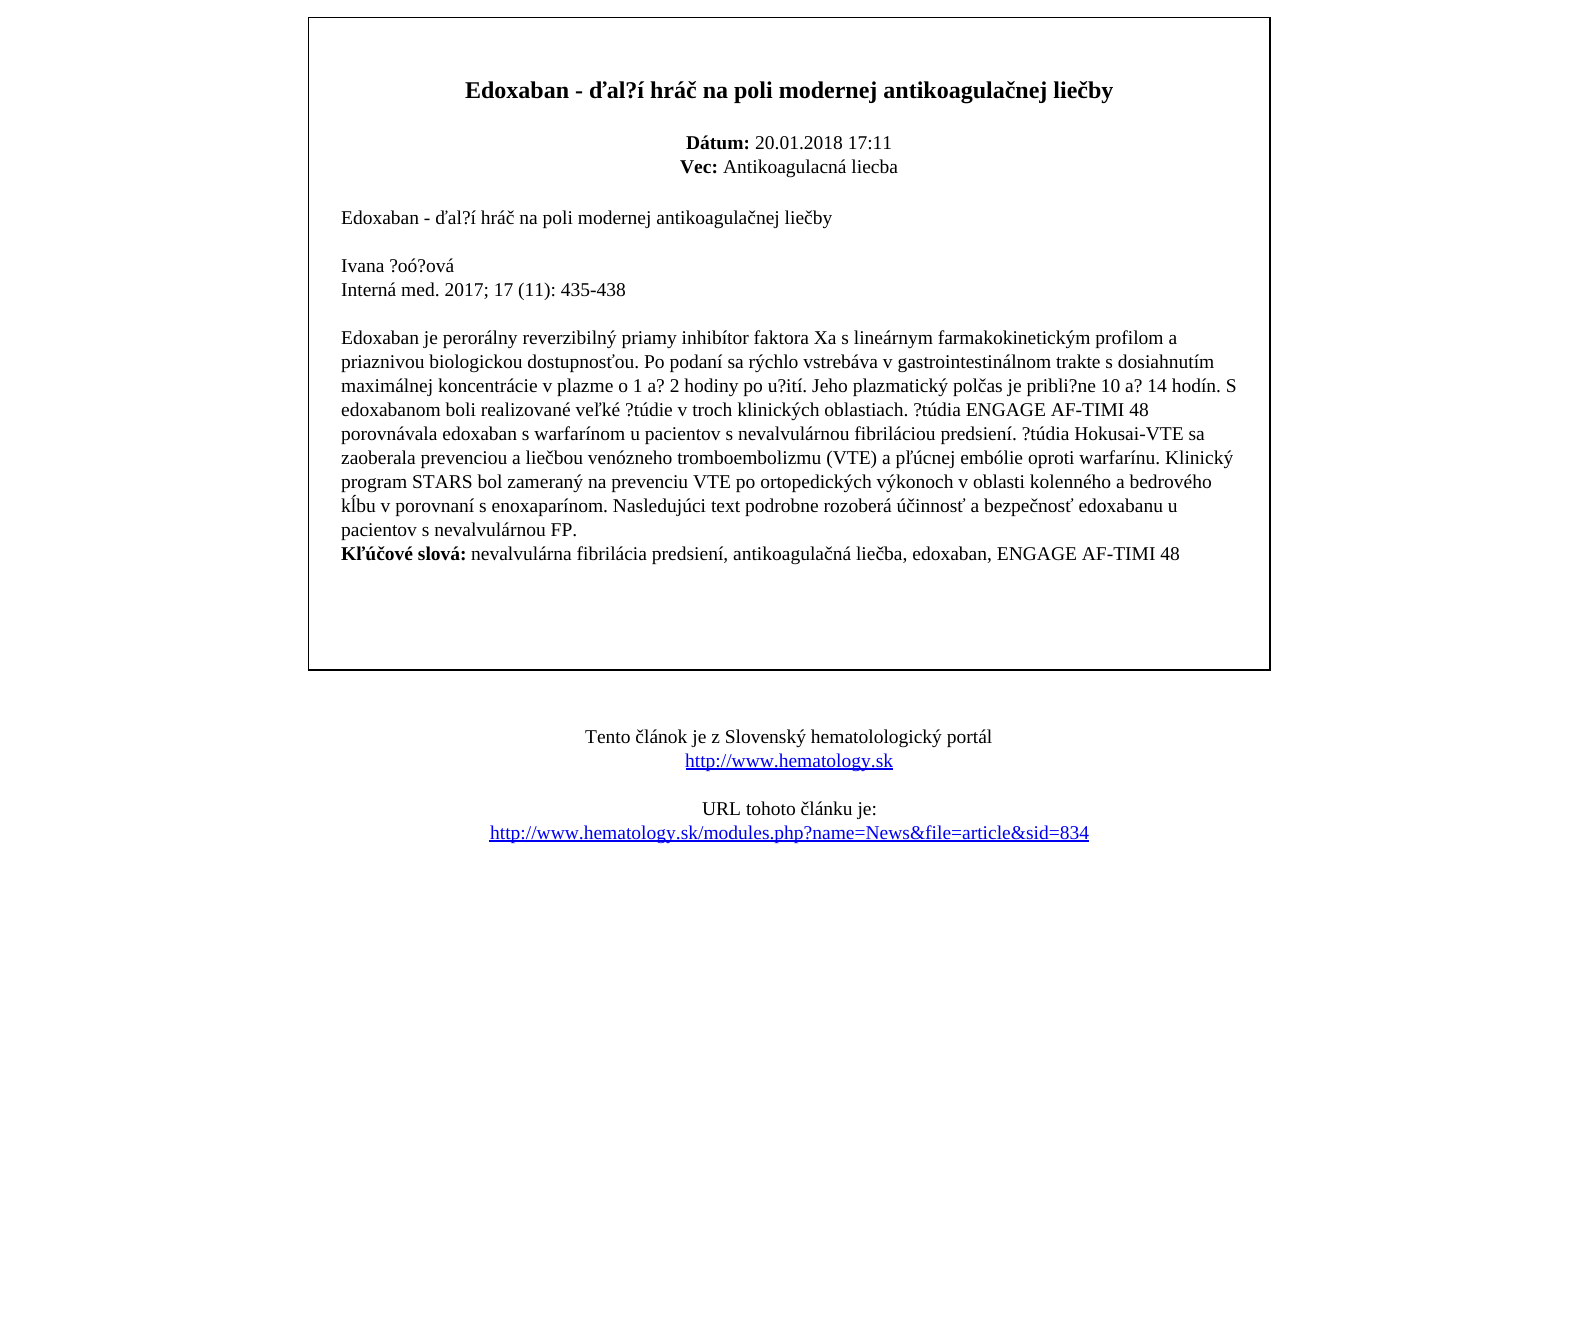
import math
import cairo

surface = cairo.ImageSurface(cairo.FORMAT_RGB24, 1578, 1317)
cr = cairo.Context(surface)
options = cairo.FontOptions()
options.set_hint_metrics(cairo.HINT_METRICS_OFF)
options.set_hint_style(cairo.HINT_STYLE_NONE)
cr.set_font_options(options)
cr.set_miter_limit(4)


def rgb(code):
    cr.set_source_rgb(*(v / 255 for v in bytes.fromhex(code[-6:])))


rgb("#ffffff")
cr.paint()
for x, y, w, h, color in [
    (308, 17, 963, 654, "#000000"),
    (309, 18, 960, 651, "#ffffff"),
    (686, 768, 207, 2, "#0000ee"),
    (489, 840, 600, 2, "#0000ee"),
]:
    rgb(color)
    cr.rectangle(x, y, w, h)
    cr.fill()
cr.select_font_face("Liberation Serif", cairo.FONT_SLANT_NORMAL, cairo.FONT_WEIGHT_BOLD)
cr.set_font_size(24)
rgb("#000000")
cr.move_to(465, 98)
cr.show_text("Edoxaban - ďal?í hráč na poli modernej antikoagulačnej liečby")
cr.set_font_size(19.5)
cr.move_to(686, 149)
cr.show_text("Dátum:")
cr.select_font_face("Liberation Serif")
cr.move_to(755, 149)
cr.show_text("20.01.2018 17:11")
cr.select_font_face("Liberation Serif", cairo.FONT_SLANT_NORMAL, cairo.FONT_WEIGHT_BOLD)
cr.move_to(680, 173)
cr.show_text("Vec:")
cr.select_font_face("Liberation Serif")
for x, y, s in [
    (723, 173, "Antikoagulacná liecba"),
    (341, 224, "Edoxaban - ďal?í hráč na poli modernej antikoagulačnej liečby"),
    (341, 272, "Ivana ?oó?ová"),
    (341, 296, "Interná med. 2017; 17 (11): 435-438"),
    (341, 344, "Edoxaban je perorálny reverzibilný priamy inhibítor faktora Xa s lineárnym farmakokinetickým profilom a"),
    (341, 368, "priaznivou biologickou dostupnosťou. Po podaní sa rýchlo vstrebáva v gastrointestinálnom trakte s dosiahnutím"),
    (341, 392, "maximálnej koncentrácie v plazme o 1 a? 2 hodiny po u?ití. Jeho plazmatický polčas je pribli?ne 10 a? 14 hodín. S"),
    (341, 416, "edoxabanom boli realizované veľké ?túdie v troch klinických oblastiach. ?túdia ENGAGE AF-TIMI 48"),
    (341, 440, "porovnávala edoxaban s warfarínom u pacientov s nevalvulárnou fibriláciou predsiení. ?túdia Hokusai-VTE sa"),
    (341, 464, "zaoberala prevenciou a liečbou venózneho tromboembolizmu (VTE) a pľúcnej embólie oproti warfarínu. Klinický"),
    (341, 488, "program STARS bol zameraný na prevenciu VTE po ortopedických výkonoch v oblasti kolenného a bedrového"),
    (341, 512, "kĺbu v porovnaní s enoxaparínom. Nasledujúci text podrobne rozoberá účinnosť a bezpečnosť edoxabanu u"),
    (341, 536, "pacientov s nevalvulárnou FP."),
]:
    cr.move_to(x, y)
    cr.show_text(s)
cr.select_font_face("Liberation Serif", cairo.FONT_SLANT_NORMAL, cairo.FONT_WEIGHT_BOLD)
cr.move_to(341, 560)
cr.show_text("Kľúčové slová:")
cr.select_font_face("Liberation Serif")
cr.move_to(471, 560)
cr.show_text("nevalvulárna fibrilácia predsiení, antikoagulačná liečba, edoxaban, ENGAGE AF-TIMI 48")
cr.move_to(585, 743)
cr.show_text("Tento článok je z Slovenský hematolologický portál")
rgb("#0000ee")
cr.move_to(685, 767)
cr.show_text("http://www.hematology.sk")
rgb("#000000")
cr.move_to(702, 815)
cr.show_text("URL tohoto článku je:")
rgb("#0000ee")
cr.move_to(490, 839)
cr.show_text("http://www.hematology.sk/modules.php?name=News&file=article&sid=834")
surface.write_to_png("page.png")
